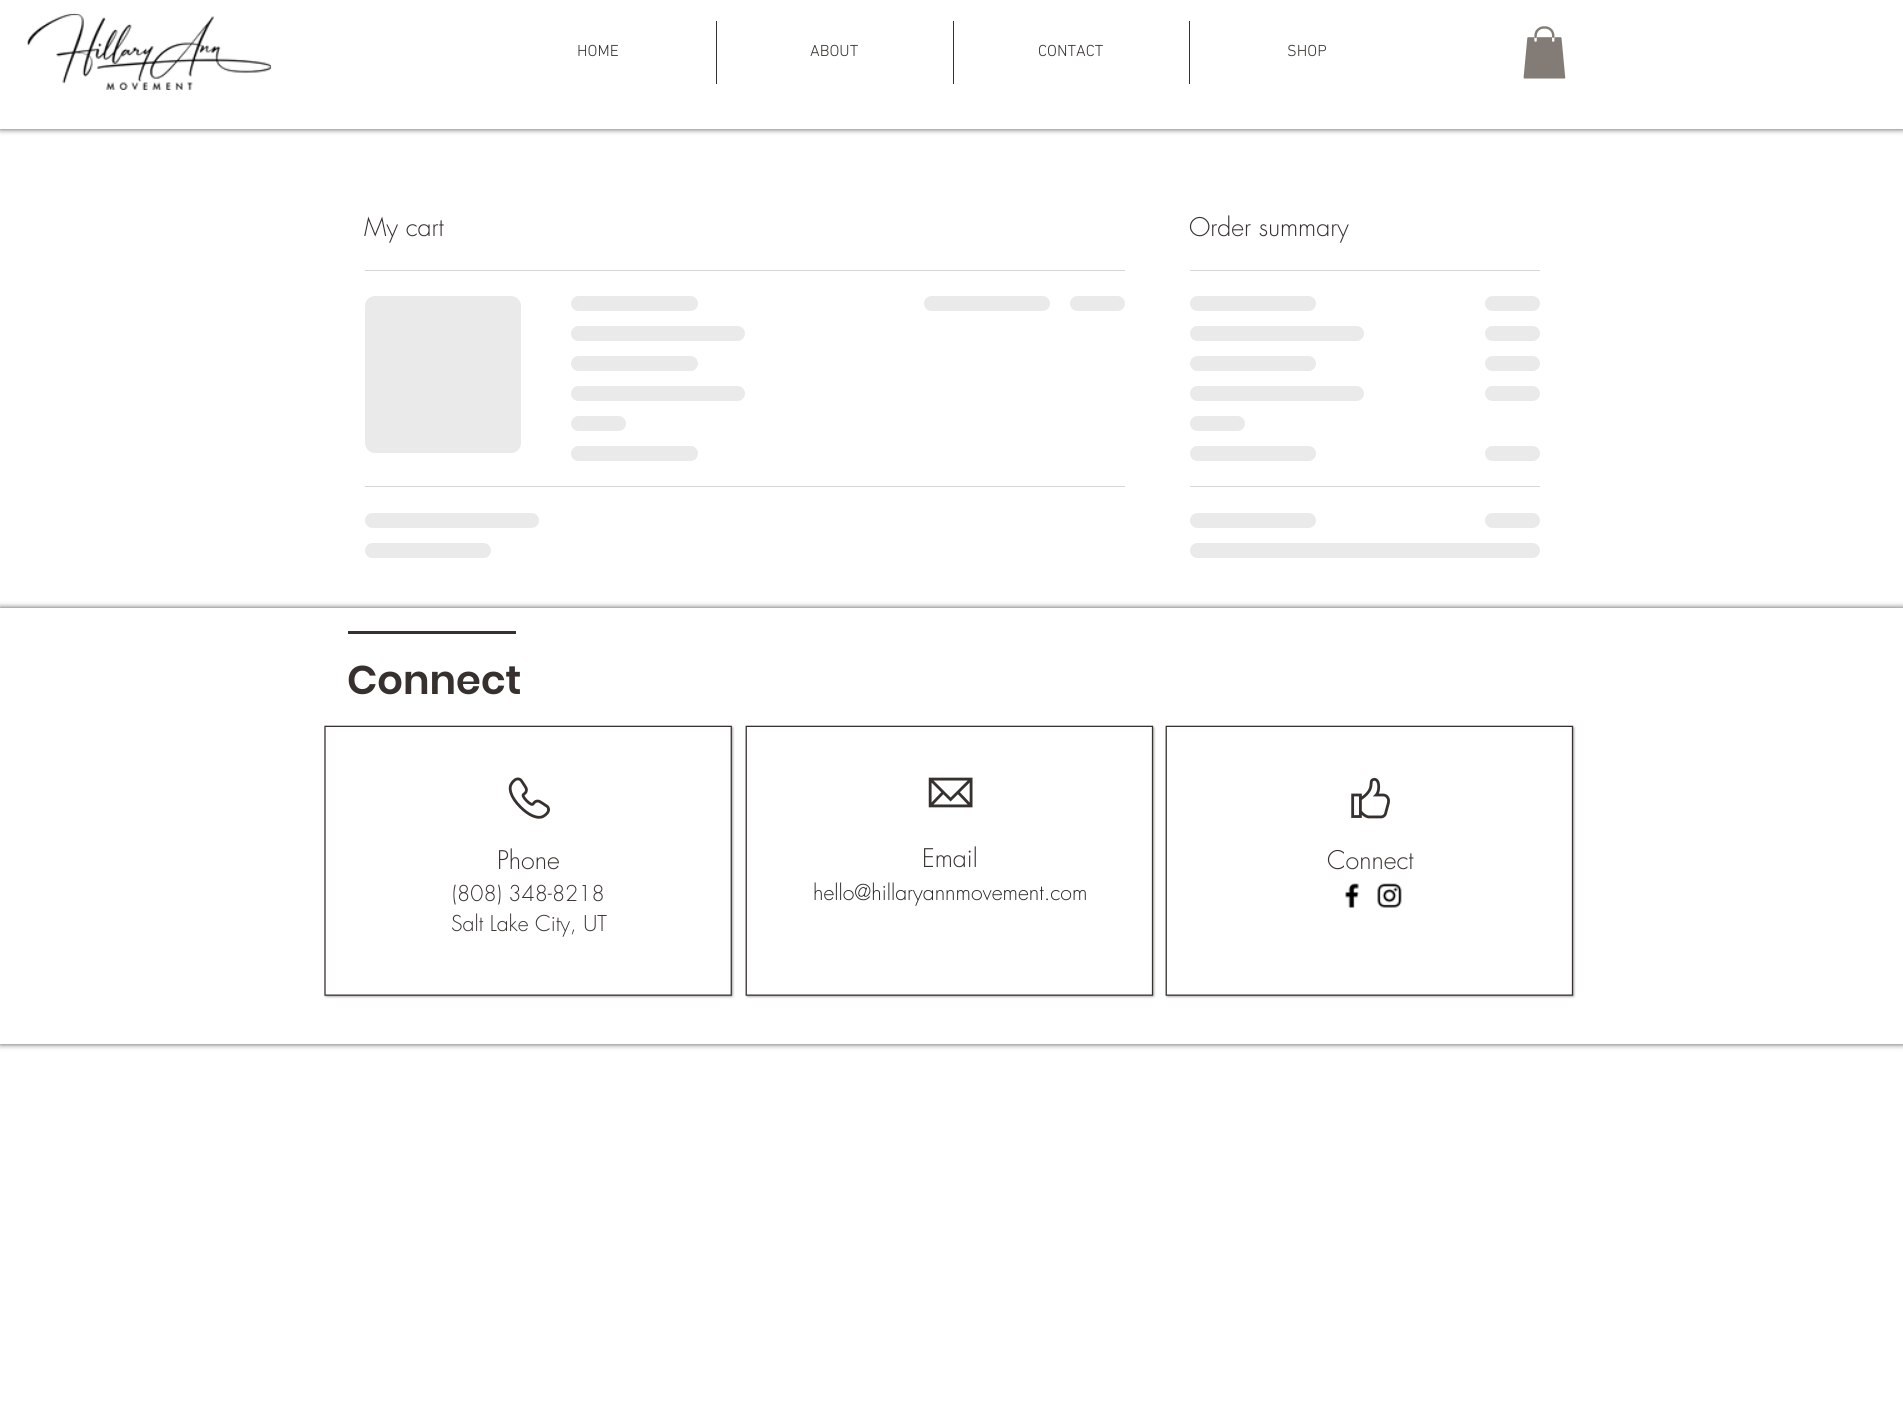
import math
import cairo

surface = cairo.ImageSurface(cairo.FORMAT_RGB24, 1903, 1423)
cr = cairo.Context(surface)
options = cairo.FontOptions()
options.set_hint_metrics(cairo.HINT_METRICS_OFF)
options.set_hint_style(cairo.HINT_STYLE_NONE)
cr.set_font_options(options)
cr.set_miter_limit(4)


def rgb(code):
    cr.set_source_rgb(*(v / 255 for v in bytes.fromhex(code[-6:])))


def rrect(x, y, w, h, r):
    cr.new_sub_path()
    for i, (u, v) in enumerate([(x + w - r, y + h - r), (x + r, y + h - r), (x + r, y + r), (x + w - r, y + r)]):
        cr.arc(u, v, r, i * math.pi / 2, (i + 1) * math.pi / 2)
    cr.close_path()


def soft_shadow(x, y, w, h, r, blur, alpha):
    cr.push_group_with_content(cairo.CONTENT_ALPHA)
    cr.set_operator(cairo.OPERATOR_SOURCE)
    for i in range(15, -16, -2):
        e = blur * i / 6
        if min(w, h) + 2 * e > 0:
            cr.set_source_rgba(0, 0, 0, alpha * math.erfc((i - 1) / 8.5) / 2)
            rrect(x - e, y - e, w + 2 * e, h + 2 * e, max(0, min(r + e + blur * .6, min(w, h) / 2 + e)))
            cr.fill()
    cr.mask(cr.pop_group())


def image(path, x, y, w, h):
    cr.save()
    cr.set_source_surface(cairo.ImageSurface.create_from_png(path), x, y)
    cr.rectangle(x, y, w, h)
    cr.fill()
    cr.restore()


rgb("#ffffff")
cr.paint()
rgb("#000000")
soft_shadow(0, 0, 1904, 129, 0, 3, 0.7)
rgb("#ffffff")
cr.rectangle(0, 0, 1903, 129)
cr.fill()
image("img/1.png", 27, 13, 245, 77)
for x, y, w, h, color in [
    (716, 21, 1, 63, "#36312e"),
    (953, 21, 1, 63, "#36312e"),
    (1189, 21, 1, 63, "#36312e"),
]:
    rgb(color)
    cr.rectangle(x, y, w, h)
    cr.fill()
image("img/2.png", 1523, 26, 43, 53)
rgb("#d7d6d5")
cr.rectangle(365, 270, 760, 1)
cr.fill()
gradient = cairo.LinearGradient(365, 374, 990, 374)
gradient.add_color_stop_rgba(0.25, 0.922, 0.918, 0.918, 1)
gradient.add_color_stop_rgba(0.37, 0.843, 0.839, 0.835, 1)
gradient.add_color_stop_rgba(0.63, 0.922, 0.918, 0.918, 1)
cr.set_source(gradient)
rrect(365, 296, 156, 157, 10)
cr.fill()
gradient = cairo.LinearGradient(571, 304, 1076, 304)
gradient.add_color_stop_rgba(0.25, 0.922, 0.918, 0.918, 1)
gradient.add_color_stop_rgba(0.37, 0.843, 0.839, 0.835, 1)
gradient.add_color_stop_rgba(0.63, 0.922, 0.918, 0.918, 1)
cr.set_source(gradient)
rrect(571, 296, 127, 15, 7.5)
cr.fill()
gradient = cairo.LinearGradient(571, 334, 1266, 334)
gradient.add_color_stop_rgba(0.25, 0.922, 0.918, 0.918, 1)
gradient.add_color_stop_rgba(0.37, 0.843, 0.839, 0.835, 1)
gradient.add_color_stop_rgba(0.63, 0.922, 0.918, 0.918, 1)
cr.set_source(gradient)
rrect(571, 326, 174, 15, 7.5)
cr.fill()
gradient = cairo.LinearGradient(571, 364, 1076, 364)
gradient.add_color_stop_rgba(0.25, 0.922, 0.918, 0.918, 1)
gradient.add_color_stop_rgba(0.37, 0.843, 0.839, 0.835, 1)
gradient.add_color_stop_rgba(0.63, 0.922, 0.918, 0.918, 1)
cr.set_source(gradient)
rrect(571, 356, 127, 15, 7.5)
cr.fill()
gradient = cairo.LinearGradient(571, 394, 1266, 394)
gradient.add_color_stop_rgba(0.25, 0.922, 0.918, 0.918, 1)
gradient.add_color_stop_rgba(0.37, 0.843, 0.839, 0.835, 1)
gradient.add_color_stop_rgba(0.63, 0.922, 0.918, 0.918, 1)
cr.set_source(gradient)
rrect(571, 386, 174, 15, 7.5)
cr.fill()
gradient = cairo.LinearGradient(571, 424, 791, 424)
gradient.add_color_stop_rgba(0.25, 0.922, 0.918, 0.918, 1)
gradient.add_color_stop_rgba(0.37, 0.843, 0.839, 0.835, 1)
gradient.add_color_stop_rgba(0.63, 0.922, 0.918, 0.918, 1)
cr.set_source(gradient)
rrect(571, 416, 55, 15, 7.5)
cr.fill()
gradient = cairo.LinearGradient(571, 454, 1076, 454)
gradient.add_color_stop_rgba(0.25, 0.922, 0.918, 0.918, 1)
gradient.add_color_stop_rgba(0.37, 0.843, 0.839, 0.835, 1)
gradient.add_color_stop_rgba(0.63, 0.922, 0.918, 0.918, 1)
cr.set_source(gradient)
rrect(571, 446, 127, 15, 7.5)
cr.fill()
gradient = cairo.LinearGradient(924, 304, 1429, 304)
gradient.add_color_stop_rgba(0.25, 0.922, 0.918, 0.918, 1)
gradient.add_color_stop_rgba(0.37, 0.843, 0.839, 0.835, 1)
gradient.add_color_stop_rgba(0.63, 0.922, 0.918, 0.918, 1)
cr.set_source(gradient)
rrect(924, 296, 126, 15, 7.5)
cr.fill()
gradient = cairo.LinearGradient(1070, 304, 1290, 304)
gradient.add_color_stop_rgba(0.25, 0.922, 0.918, 0.918, 1)
gradient.add_color_stop_rgba(0.37, 0.843, 0.839, 0.835, 1)
gradient.add_color_stop_rgba(0.63, 0.922, 0.918, 0.918, 1)
cr.set_source(gradient)
rrect(1070, 296, 55, 15, 7.5)
cr.fill()
rgb("#d7d6d5")
cr.rectangle(365, 486, 760, 1)
cr.fill()
gradient = cairo.LinearGradient(365, 520, 1060, 520)
gradient.add_color_stop_rgba(0.25, 0.922, 0.918, 0.918, 1)
gradient.add_color_stop_rgba(0.37, 0.843, 0.839, 0.835, 1)
gradient.add_color_stop_rgba(0.63, 0.922, 0.918, 0.918, 1)
cr.set_source(gradient)
rrect(365, 513, 174, 15, 7.5)
cr.fill()
gradient = cairo.LinearGradient(365, 550, 870, 550)
gradient.add_color_stop_rgba(0.25, 0.922, 0.918, 0.918, 1)
gradient.add_color_stop_rgba(0.37, 0.843, 0.839, 0.835, 1)
gradient.add_color_stop_rgba(0.63, 0.922, 0.918, 0.918, 1)
cr.set_source(gradient)
rrect(365, 543, 126, 15, 7.5)
cr.fill()
rgb("#d7d6d5")
cr.rectangle(1190, 270, 350, 1)
cr.fill()
gradient = cairo.LinearGradient(1190, 304, 1695, 304)
gradient.add_color_stop_rgba(0.25, 0.922, 0.918, 0.918, 1)
gradient.add_color_stop_rgba(0.37, 0.843, 0.839, 0.835, 1)
gradient.add_color_stop_rgba(0.63, 0.922, 0.918, 0.918, 1)
cr.set_source(gradient)
rrect(1190, 296, 126, 15, 7.5)
cr.fill()
gradient = cairo.LinearGradient(1485, 304, 1705, 304)
gradient.add_color_stop_rgba(0.25, 0.922, 0.918, 0.918, 1)
gradient.add_color_stop_rgba(0.37, 0.843, 0.839, 0.835, 1)
gradient.add_color_stop_rgba(0.63, 0.922, 0.918, 0.918, 1)
cr.set_source(gradient)
rrect(1485, 296, 55, 15, 7.5)
cr.fill()
gradient = cairo.LinearGradient(1190, 334, 1885, 334)
gradient.add_color_stop_rgba(0.25, 0.922, 0.918, 0.918, 1)
gradient.add_color_stop_rgba(0.37, 0.843, 0.839, 0.835, 1)
gradient.add_color_stop_rgba(0.63, 0.922, 0.918, 0.918, 1)
cr.set_source(gradient)
rrect(1190, 326, 174, 15, 7.5)
cr.fill()
gradient = cairo.LinearGradient(1485, 334, 1705, 334)
gradient.add_color_stop_rgba(0.25, 0.922, 0.918, 0.918, 1)
gradient.add_color_stop_rgba(0.37, 0.843, 0.839, 0.835, 1)
gradient.add_color_stop_rgba(0.63, 0.922, 0.918, 0.918, 1)
cr.set_source(gradient)
rrect(1485, 326, 55, 15, 7.5)
cr.fill()
gradient = cairo.LinearGradient(1190, 364, 1695, 364)
gradient.add_color_stop_rgba(0.25, 0.922, 0.918, 0.918, 1)
gradient.add_color_stop_rgba(0.37, 0.843, 0.839, 0.835, 1)
gradient.add_color_stop_rgba(0.63, 0.922, 0.918, 0.918, 1)
cr.set_source(gradient)
rrect(1190, 356, 126, 15, 7.5)
cr.fill()
gradient = cairo.LinearGradient(1485, 364, 1705, 364)
gradient.add_color_stop_rgba(0.25, 0.922, 0.918, 0.918, 1)
gradient.add_color_stop_rgba(0.37, 0.843, 0.839, 0.835, 1)
gradient.add_color_stop_rgba(0.63, 0.922, 0.918, 0.918, 1)
cr.set_source(gradient)
rrect(1485, 356, 55, 15, 7.5)
cr.fill()
gradient = cairo.LinearGradient(1190, 394, 1885, 394)
gradient.add_color_stop_rgba(0.25, 0.922, 0.918, 0.918, 1)
gradient.add_color_stop_rgba(0.37, 0.843, 0.839, 0.835, 1)
gradient.add_color_stop_rgba(0.63, 0.922, 0.918, 0.918, 1)
cr.set_source(gradient)
rrect(1190, 386, 174, 15, 7.5)
cr.fill()
gradient = cairo.LinearGradient(1485, 394, 1705, 394)
gradient.add_color_stop_rgba(0.25, 0.922, 0.918, 0.918, 1)
gradient.add_color_stop_rgba(0.37, 0.843, 0.839, 0.835, 1)
gradient.add_color_stop_rgba(0.63, 0.922, 0.918, 0.918, 1)
cr.set_source(gradient)
rrect(1485, 386, 55, 15, 7.5)
cr.fill()
gradient = cairo.LinearGradient(1190, 424, 1410, 424)
gradient.add_color_stop_rgba(0.25, 0.922, 0.918, 0.918, 1)
gradient.add_color_stop_rgba(0.37, 0.843, 0.839, 0.835, 1)
gradient.add_color_stop_rgba(0.63, 0.922, 0.918, 0.918, 1)
cr.set_source(gradient)
rrect(1190, 416, 55, 15, 7.5)
cr.fill()
gradient = cairo.LinearGradient(1190, 454, 1695, 454)
gradient.add_color_stop_rgba(0.25, 0.922, 0.918, 0.918, 1)
gradient.add_color_stop_rgba(0.37, 0.843, 0.839, 0.835, 1)
gradient.add_color_stop_rgba(0.63, 0.922, 0.918, 0.918, 1)
cr.set_source(gradient)
rrect(1190, 446, 126, 15, 7.5)
cr.fill()
gradient = cairo.LinearGradient(1485, 454, 1705, 454)
gradient.add_color_stop_rgba(0.25, 0.922, 0.918, 0.918, 1)
gradient.add_color_stop_rgba(0.37, 0.843, 0.839, 0.835, 1)
gradient.add_color_stop_rgba(0.63, 0.922, 0.918, 0.918, 1)
cr.set_source(gradient)
rrect(1485, 446, 55, 15, 7.5)
cr.fill()
rgb("#d7d6d5")
cr.rectangle(1190, 486, 350, 1)
cr.fill()
gradient = cairo.LinearGradient(1190, 520, 1695, 520)
gradient.add_color_stop_rgba(0.25, 0.922, 0.918, 0.918, 1)
gradient.add_color_stop_rgba(0.37, 0.843, 0.839, 0.835, 1)
gradient.add_color_stop_rgba(0.63, 0.922, 0.918, 0.918, 1)
cr.set_source(gradient)
rrect(1190, 513, 126, 15, 7.5)
cr.fill()
gradient = cairo.LinearGradient(1485, 520, 1705, 520)
gradient.add_color_stop_rgba(0.25, 0.922, 0.918, 0.918, 1)
gradient.add_color_stop_rgba(0.37, 0.843, 0.839, 0.835, 1)
gradient.add_color_stop_rgba(0.63, 0.922, 0.918, 0.918, 1)
cr.set_source(gradient)
rrect(1485, 513, 55, 15, 7.5)
cr.fill()
gradient = cairo.LinearGradient(1190, 550, 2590, 550)
gradient.add_color_stop_rgba(0.25, 0.922, 0.918, 0.918, 1)
gradient.add_color_stop_rgba(0.37, 0.843, 0.839, 0.835, 1)
gradient.add_color_stop_rgba(0.63, 0.922, 0.918, 0.918, 1)
cr.set_source(gradient)
rrect(1190, 543, 350, 15, 7.5)
cr.fill()
rgb("#000000")
soft_shadow(0, 608, 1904, 436, 0, 3, 0.7)
rgb("#ffffff")
cr.rectangle(0, 608, 1903, 436)
cr.fill()
rgb("#36312e")
cr.rectangle(348, 631, 168, 3)
cr.fill()
image("img/3.png", 324, 725, 411, 274)
image("img/4.png", 745, 725, 411, 274)
image("img/4.png", 1165, 725, 411, 274)
image("img/5.png", 508, 777, 42, 42)
image("img/6.png", 928, 777, 45, 31)
image("img/7.png", 1351, 777, 39, 42)
image("img/8.png", 1345, 883, 14, 25)
image("img/9.png", 1377, 883, 25, 25)
cr.select_font_face("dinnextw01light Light")
cr.set_font_size(16.25)
for x, y, s in [
    (577, 56, "HOME"),
    (810, 56, "ABOUT"),
    (1038, 56, "CONTACT"),
    (1287, 56, "SHOP"),
]:
    cr.move_to(x, y)
    cr.show_text(s)
cr.select_font_face("futura Light")
cr.set_font_size(25)
cr.move_to(364, 236)
cr.show_text("My cart")
cr.move_to(1189, 236)
cr.show_text("Order summary")
cr.select_font_face("Poppins SemiBold")
cr.set_font_size(40)
cr.move_to(347, 694)
cr.show_text("Connect")
cr.select_font_face("futura Light")
cr.set_font_size(25)
for x, y, s in [
    (497, 869, "Phone"),
    (922, 867, "Email"),
    (1327, 869, "Connect"),
]:
    cr.move_to(x, y)
    cr.show_text(s)
cr.set_font_size(21.25)
cr.move_to(452, 901)
cr.show_text("(808) 348-8218")
cr.move_to(451, 931)
cr.show_text("Salt Lake City, UT")
rgb("#282626")
cr.move_to(813, 900)
cr.show_text("hello@hillaryannmovement.com")
surface.write_to_png("page.png")
